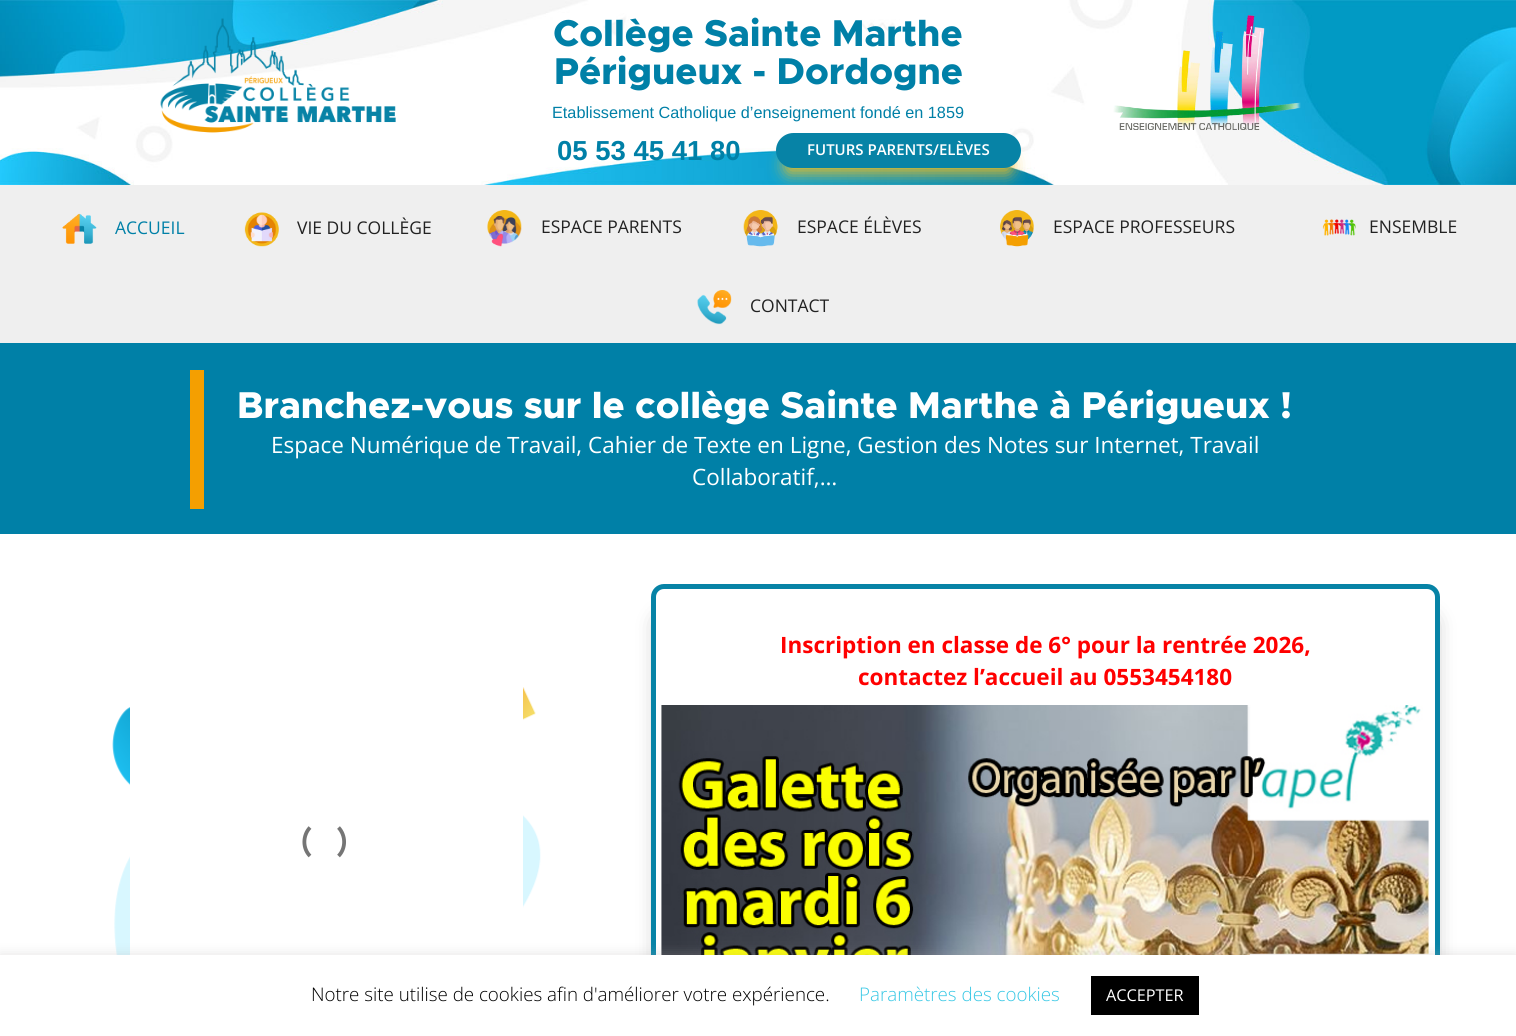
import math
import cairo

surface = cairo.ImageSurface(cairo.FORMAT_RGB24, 1516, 1036)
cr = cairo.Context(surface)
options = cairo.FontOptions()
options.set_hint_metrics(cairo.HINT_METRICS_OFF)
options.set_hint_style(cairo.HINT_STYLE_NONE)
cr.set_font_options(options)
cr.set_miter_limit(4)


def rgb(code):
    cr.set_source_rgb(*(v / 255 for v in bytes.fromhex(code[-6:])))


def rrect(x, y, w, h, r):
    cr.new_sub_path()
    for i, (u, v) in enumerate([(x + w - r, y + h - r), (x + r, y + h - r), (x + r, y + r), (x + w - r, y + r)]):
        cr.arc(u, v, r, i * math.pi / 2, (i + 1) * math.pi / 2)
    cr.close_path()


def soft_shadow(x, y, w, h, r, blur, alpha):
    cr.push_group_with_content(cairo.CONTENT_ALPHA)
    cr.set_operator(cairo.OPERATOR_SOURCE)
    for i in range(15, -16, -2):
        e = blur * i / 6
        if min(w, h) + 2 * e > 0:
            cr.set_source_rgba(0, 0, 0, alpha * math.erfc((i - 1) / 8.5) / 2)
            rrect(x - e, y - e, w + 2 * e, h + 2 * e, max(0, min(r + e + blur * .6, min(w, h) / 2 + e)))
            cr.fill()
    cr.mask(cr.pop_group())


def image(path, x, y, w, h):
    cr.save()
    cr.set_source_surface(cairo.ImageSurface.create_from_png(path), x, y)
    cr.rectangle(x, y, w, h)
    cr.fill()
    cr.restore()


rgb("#ffffff")
cr.paint()
image("img/1.png", 0, 0, 1516, 185)
image("img/2.png", 160, 18, 236, 115)
rgb("#f2bd1e")
soft_shadow(786, 158, 225, 15, 7.5, 8, 1)
rgb("#0783a6")
rrect(776, 133, 245, 35, 17.5)
cr.fill()
image("img/3.png", 1113, 15, 188, 115)
rgb("#efefef")
cr.rectangle(0, 185, 1516, 158)
cr.fill()
image("img/4.png", 62, 213, 35, 31)
image("img/5.png", 244, 212, 35, 35)
image("img/6.png", 487, 210, 35, 37)
image("img/7.png", 743, 210, 35, 37)
image("img/8.png", 1000, 210, 34, 37)
image("img/9.png", 1322, 219, 34, 17)
image("img/10.png", 697, 290, 35, 35)
rgb("#0080a7")
cr.rectangle(0, 343, 1516, 191)
cr.fill()
rgb("#f49f01")
cr.rectangle(190, 370, 14, 139)
cr.fill()
cr.save()
cr.set_fill_rule(cairo.FILL_RULE_EVEN_ODD)
cr.new_path()
cr.move_to(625, 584)
cr.line_to(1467, 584)
cr.line_to(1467, 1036)
cr.line_to(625, 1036)
cr.close_path()
cr.move_to(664, 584)
cr.line_to(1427, 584)
cr.curve_to(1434, 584, 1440, 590, 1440, 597)
cr.line_to(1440, 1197)
cr.curve_to(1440, 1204, 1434, 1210, 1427, 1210)
cr.line_to(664, 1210)
cr.curve_to(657, 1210, 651, 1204, 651, 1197)
cr.line_to(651, 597)
cr.curve_to(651, 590, 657, 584, 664, 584)
cr.close_path()
cr.clip()
rgb("#848484")
soft_shadow(659, 618, 774, 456, 5, 11, 0.61)
cr.restore()
rrect(653.5, 586.5, 784, 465, 10.5)
rgb("#0783a6")
cr.set_line_width(5)
cr.stroke()
image("img/11.png", 661, 705, 768, 250)
image("img/12.png", 112, 687, 429, 268)
rgb("#ffffff")
cr.rectangle(130, 687, 393, 268)
cr.fill()
cr.new_path()
cr.move_to(338.5, 827.5)
cr.curve_to(346, 835.5, 346, 848.5, 338.5, 856)
cr.move_to(310, 856)
cr.curve_to(302.5, 848.5, 302.5, 835.5, 310, 827.5)
rgb("#757575")
cr.set_line_width(3.8)
cr.stroke()
rgb("#acabab")
soft_shadow(0, 954, 1516, 81, 0, 6, 0.3)
rgb("#ffffff")
cr.rectangle(0, 955, 1516, 81)
cr.fill()
rgb("#000000")
cr.rectangle(1091, 976, 108, 39)
cr.fill()
cr.select_font_face("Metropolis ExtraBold")
cr.set_font_size(37.5)
rgb("#0080a7")
cr.move_to(553, 46)
cr.show_text("Collège Sainte Marthe")
cr.move_to(554, 84)
cr.show_text("Périgueux - Dordogne")
cr.select_font_face("Liberation Sans")
cr.set_font_size(16.25)
cr.move_to(552, 118)
cr.show_text("Etablissement Catholique d’enseignement fondé en 1859")
cr.select_font_face("Liberation Sans", cairo.FONT_SLANT_NORMAL, cairo.FONT_WEIGHT_BOLD)
cr.set_font_size(27.5)
cr.move_to(557, 160)
cr.show_text("05 53 45 41 80")
cr.select_font_face("Open Sans SemiBold")
cr.set_font_size(15)
rgb("#ffffff")
cr.move_to(807, 155)
cr.show_text("FUTURS PARENTS/ELÈVES")
cr.select_font_face("Open Sans")
cr.set_font_size(17.5)
rgb("#0080a7")
cr.move_to(115, 234)
cr.show_text("ACCUEIL")
rgb("#222222")
for x, y, s in [
    (297, 234, "VIE DU COLLÈGE"),
    (541, 233, "ESPACE PARENTS"),
    (797, 233, "ESPACE ÉLÈVES"),
    (1053, 233, "ESPACE PROFESSEURS"),
    (1369, 233, "ENSEMBLE"),
    (750, 312, "CONTACT"),
]:
    cr.move_to(x, y)
    cr.show_text(s)
cr.select_font_face("Metropolis ExtraBold")
cr.set_font_size(37.5)
rgb("#ffffff")
cr.move_to(237, 418)
cr.show_text("Branchez-vous sur le collège Sainte Marthe à Périgueux !")
cr.select_font_face("Open Sans")
cr.set_font_size(22.5)
cr.move_to(271, 453)
cr.show_text("Espace Numérique de Travail, Cahier de Texte en Ligne, Gestion des Notes sur Internet, Travail")
cr.move_to(692, 485)
cr.show_text("Collaboratif,…")
cr.select_font_face("Open Sans", cairo.FONT_SLANT_NORMAL, cairo.FONT_WEIGHT_BOLD)
rgb("#ff0000")
cr.move_to(780, 653)
cr.show_text("Inscription en classe de 6° pour la rentrée 2026,")
cr.move_to(858, 685)
cr.show_text("contactez l’accueil au 0553454180")
cr.select_font_face("Open Sans Light")
cr.set_font_size(18.75)
rgb("#000000")
cr.move_to(311, 1001)
cr.show_text("Notre site utilise de cookies afin d'améliorer votre expérience.")
rgb("#39c8e5")
cr.move_to(859, 1001)
cr.show_text("Paramètres des cookies")
cr.select_font_face("Open Sans")
cr.set_font_size(16.25)
rgb("#ffffff")
cr.move_to(1106, 1001)
cr.show_text("ACCEPTER")
surface.write_to_png("page.png")
